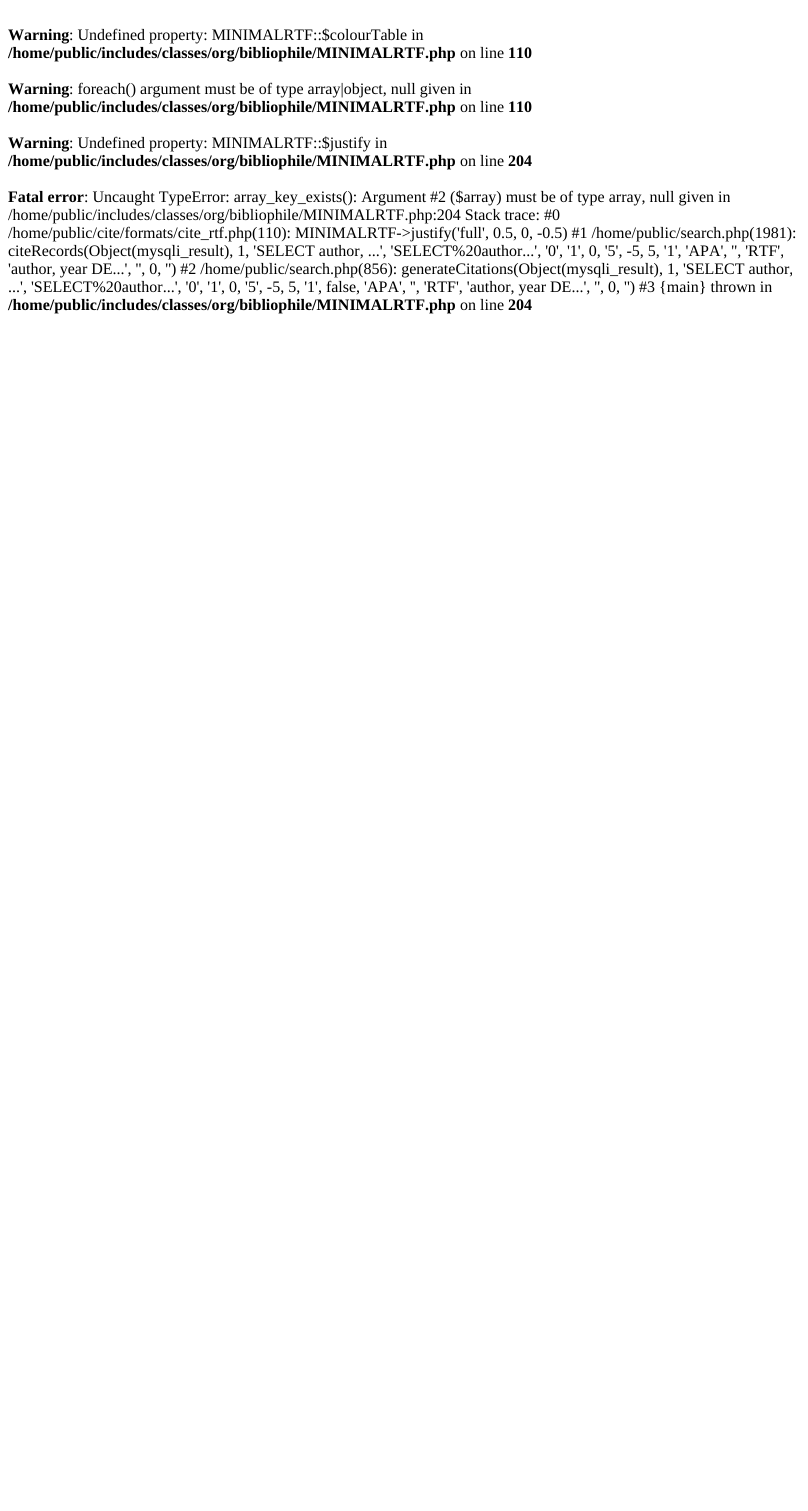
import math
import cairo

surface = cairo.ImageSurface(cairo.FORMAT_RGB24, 808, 1511)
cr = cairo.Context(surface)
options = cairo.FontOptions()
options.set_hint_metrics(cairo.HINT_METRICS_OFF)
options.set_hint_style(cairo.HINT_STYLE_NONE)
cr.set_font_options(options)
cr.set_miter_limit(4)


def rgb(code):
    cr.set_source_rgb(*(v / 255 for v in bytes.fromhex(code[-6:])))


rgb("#ffffff")
cr.paint()
cr.select_font_face("Liberation Serif", cairo.FONT_SLANT_NORMAL, cairo.FONT_WEIGHT_BOLD)
cr.set_font_size(16)
rgb("#000000")
cr.move_to(8, 40)
cr.show_text("Warning")
cr.select_font_face("Liberation Serif")
cr.move_to(69, 40)
cr.show_text(": Undefined property: MINIMALRTF::$colourTable in")
cr.select_font_face("Liberation Serif", cairo.FONT_SLANT_NORMAL, cairo.FONT_WEIGHT_BOLD)
cr.move_to(8, 58)
cr.show_text("/home/public/includes/classes/org/bibliophile/MINIMALRTF.php")
cr.select_font_face("Liberation Serif")
cr.move_to(460, 58)
cr.show_text("on line")
cr.select_font_face("Liberation Serif", cairo.FONT_SLANT_NORMAL, cairo.FONT_WEIGHT_BOLD)
cr.move_to(508, 58)
cr.show_text("110")
cr.move_to(8, 94)
cr.show_text("Warning")
cr.select_font_face("Liberation Serif")
cr.move_to(69, 94)
cr.show_text(": foreach() argument must be of type array|object, null given in")
cr.select_font_face("Liberation Serif", cairo.FONT_SLANT_NORMAL, cairo.FONT_WEIGHT_BOLD)
cr.move_to(8, 112)
cr.show_text("/home/public/includes/classes/org/bibliophile/MINIMALRTF.php")
cr.select_font_face("Liberation Serif")
cr.move_to(460, 112)
cr.show_text("on line")
cr.select_font_face("Liberation Serif", cairo.FONT_SLANT_NORMAL, cairo.FONT_WEIGHT_BOLD)
cr.move_to(508, 112)
cr.show_text("110")
cr.move_to(8, 148)
cr.show_text("Warning")
cr.select_font_face("Liberation Serif")
cr.move_to(69, 148)
cr.show_text(": Undefined property: MINIMALRTF::$justify in")
cr.select_font_face("Liberation Serif", cairo.FONT_SLANT_NORMAL, cairo.FONT_WEIGHT_BOLD)
cr.move_to(8, 166)
cr.show_text("/home/public/includes/classes/org/bibliophile/MINIMALRTF.php")
cr.select_font_face("Liberation Serif")
cr.move_to(460, 166)
cr.show_text("on line")
cr.select_font_face("Liberation Serif", cairo.FONT_SLANT_NORMAL, cairo.FONT_WEIGHT_BOLD)
cr.move_to(508, 166)
cr.show_text("204")
cr.move_to(8, 202)
cr.show_text("Fatal error")
cr.select_font_face("Liberation Serif")
for x, y, s in [
    (84, 202, ": Uncaught TypeError: array_key_exists(): Argument #2 ($array) must be of type array, null given in"),
    (8, 220, "/home/public/includes/classes/org/bibliophile/MINIMALRTF.php:204 Stack trace: #0"),
    (8, 238, "/home/public/cite/formats/cite_rtf.php(110): MINIMALRTF->justify('full', 0.5, 0, -0.5) #1 /home/public/search.php(1981):"),
    (8, 256, "citeRecords(Object(mysqli_result), 1, 'SELECT author, ...', 'SELECT%20author...', '0', '1', 0, '5', -5, 5, '1', 'APA', '', 'RTF',"),
    (8, 274, "'author, year DE...', '', 0, '') #2 /home/public/search.php(856): generateCitations(Object(mysqli_result), 1, 'SELECT author,"),
    (8, 292, "...', 'SELECT%20author...', '0', '1', 0, '5', -5, 5, '1', false, 'APA', '', 'RTF', 'author, year DE...', '', 0, '') #3 {main} thrown in"),
]:
    cr.move_to(x, y)
    cr.show_text(s)
cr.select_font_face("Liberation Serif", cairo.FONT_SLANT_NORMAL, cairo.FONT_WEIGHT_BOLD)
cr.move_to(8, 310)
cr.show_text("/home/public/includes/classes/org/bibliophile/MINIMALRTF.php")
cr.select_font_face("Liberation Serif")
cr.move_to(460, 310)
cr.show_text("on line")
cr.select_font_face("Liberation Serif", cairo.FONT_SLANT_NORMAL, cairo.FONT_WEIGHT_BOLD)
cr.move_to(508, 310)
cr.show_text("204")
surface.write_to_png("page.png")
